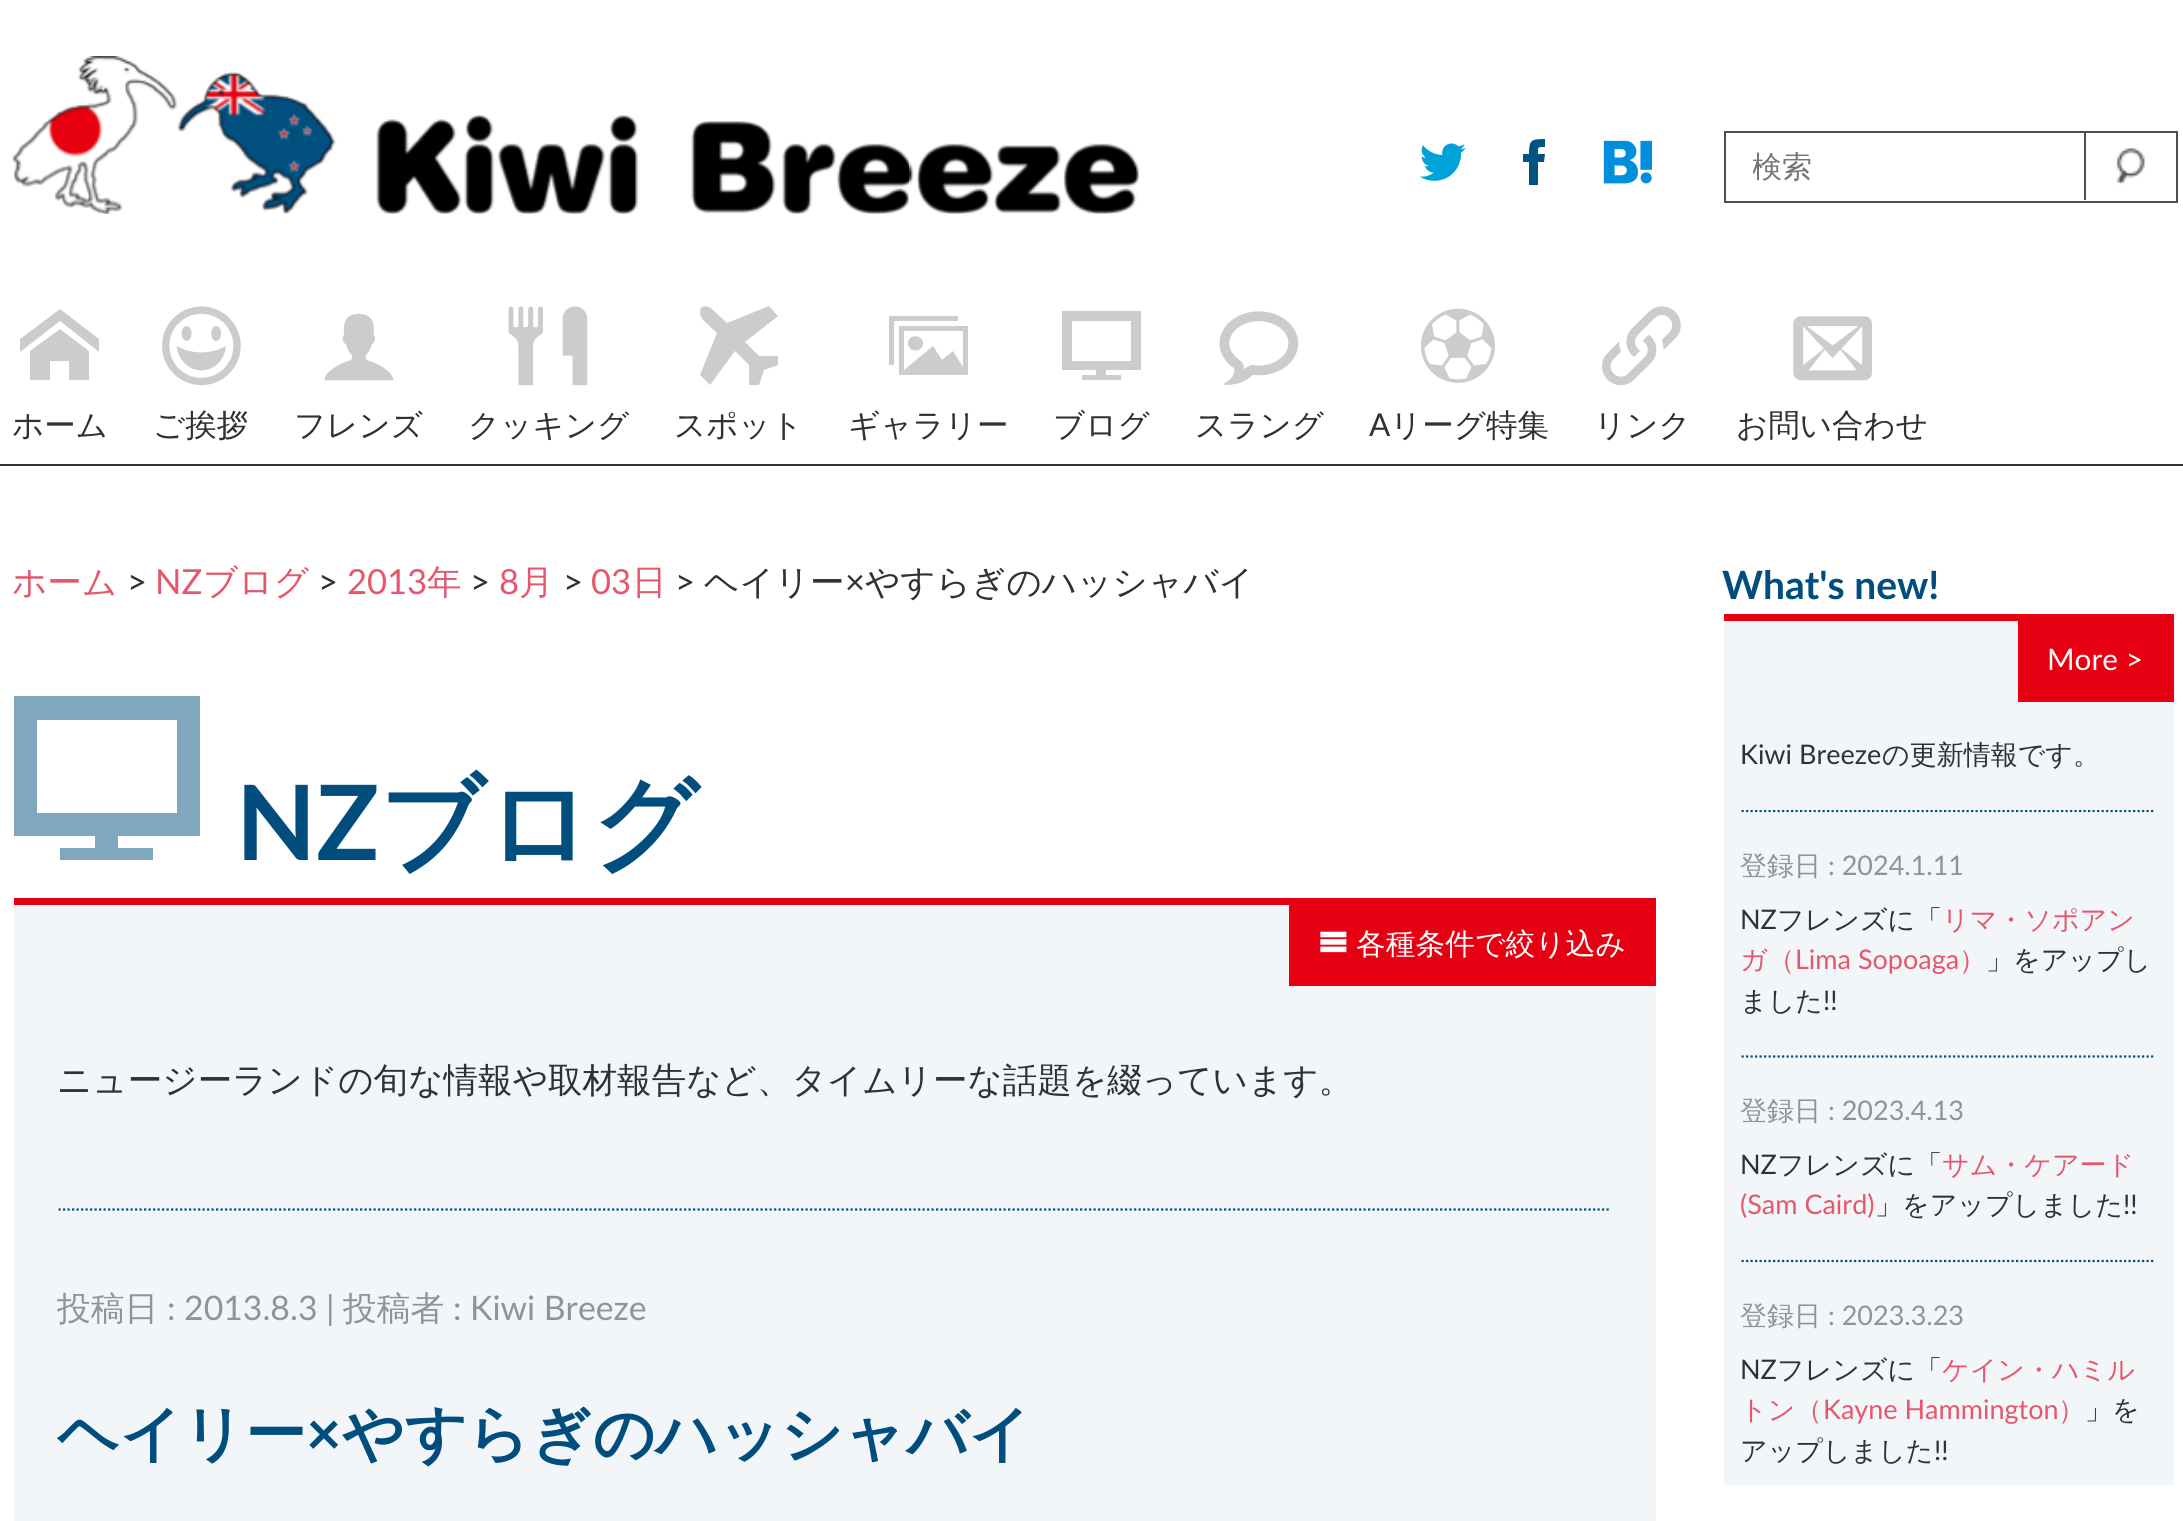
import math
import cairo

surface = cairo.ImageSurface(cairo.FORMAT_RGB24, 2183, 1521)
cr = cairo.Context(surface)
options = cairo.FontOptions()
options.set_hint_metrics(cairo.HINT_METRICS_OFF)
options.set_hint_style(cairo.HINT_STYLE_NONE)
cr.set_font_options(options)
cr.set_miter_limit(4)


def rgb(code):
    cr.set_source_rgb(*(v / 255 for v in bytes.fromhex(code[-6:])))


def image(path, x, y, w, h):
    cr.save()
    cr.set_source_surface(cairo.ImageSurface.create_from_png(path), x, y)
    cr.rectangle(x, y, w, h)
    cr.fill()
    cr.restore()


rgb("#ffffff")
cr.paint()
rgb("#303132")
cr.rectangle(0, 464, 2183, 2)
cr.fill()
image("img/1.png", 12, 56, 1127, 158)
image("img/2.png", 1420, 143, 46, 38)
rgb("#005482")
cr.new_path()
cr.move_to(1538, 185)
cr.line_to(1529, 185)
cr.line_to(1529, 162)
cr.line_to(1523, 162)
cr.line_to(1523, 154)
cr.line_to(1529, 154)
cr.curve_to(1529, 140, 1531, 139, 1545, 139)
cr.line_to(1545, 147)
cr.curve_to(1537, 147, 1538, 147, 1538, 154)
cr.line_to(1545, 154)
cr.line_to(1544, 162)
cr.line_to(1538, 162)
cr.close_path()
cr.fill()
image("img/3.png", 1603, 140, 49, 44)
cr.rectangle(1725, 132, 452, 70)
rgb("#4d4d4d")
cr.stroke()
image("img/4.png", 2116, 148, 29, 37)
cr.rectangle(2084, 133, 2, 67)
cr.fill()
rgb("#cccccc")
cr.new_path()
cr.move_to(99, 352)
cr.line_to(60, 321)
cr.line_to(20, 352)
cr.line_to(20, 339)
cr.line_to(60, 309)
cr.line_to(99, 339)
cr.close_path()
cr.move_to(89, 351)
cr.line_to(89, 380)
cr.line_to(69, 380)
cr.line_to(69, 361)
cr.line_to(50, 361)
cr.line_to(50, 380)
cr.line_to(30, 380)
cr.line_to(30, 351)
cr.line_to(60, 329)
cr.close_path()
cr.fill()
image("img/5.png", 162, 306, 79, 80)
image("img/6.png", 324, 313, 70, 68)
image("img/7.png", 508, 306, 80, 80)
cr.new_path()
cr.move_to(759, 356)
cr.line_to(745, 342)
cr.line_to(778, 316)
cr.line_to(769, 306)
cr.line_to(727, 323)
cr.line_to(713, 310)
cr.curve_to(709, 306, 704, 305, 701, 308)
cr.curve_to(699, 311, 700, 316, 703, 320)
cr.line_to(717, 333)
cr.line_to(700, 375)
cr.line_to(710, 385)
cr.line_to(735, 351)
cr.line_to(749, 365)
cr.line_to(749, 385)
cr.line_to(759, 385)
cr.line_to(764, 370)
cr.line_to(778, 365)
cr.line_to(778, 356)
cr.close_path()
cr.fill()
cr.new_path()
cr.move_to(899, 326)
cr.line_to(899, 375)
cr.line_to(968, 375)
cr.line_to(968, 326)
cr.close_path()
cr.move_to(963, 367)
cr.line_to(953, 351)
cr.line_to(942, 360)
cr.line_to(933, 346)
cr.line_to(904, 370)
cr.line_to(904, 331)
cr.line_to(963, 331)
cr.close_path()
cr.move_to(908, 343)
cr.curve_to(908, 334, 923, 334, 923, 343)
cr.curve_to(923, 353, 908, 353, 908, 343)
cr.close_path()
cr.move_to(958, 316)
cr.line_to(889, 316)
cr.line_to(889, 365)
cr.line_to(894, 365)
cr.line_to(894, 321)
cr.line_to(958, 321)
cr.close_path()
cr.fill()
cr.new_path()
cr.move_to(1141, 370)
cr.line_to(1141, 311)
cr.line_to(1062, 311)
cr.line_to(1062, 370)
cr.line_to(1096, 370)
cr.line_to(1096, 375)
cr.line_to(1082, 375)
cr.line_to(1082, 380)
cr.line_to(1121, 380)
cr.line_to(1121, 375)
cr.line_to(1106, 375)
cr.line_to(1106, 370)
cr.close_path()
cr.move_to(1072, 321)
cr.line_to(1131, 321)
cr.line_to(1131, 361)
cr.line_to(1072, 361)
cr.close_path()
cr.fill()
image("img/8.png", 1219, 311, 80, 75)
image("img/9.png", 1420, 308, 75, 75)
image("img/10.png", 1602, 306, 79, 80)
image("img/11.png", 1793, 316, 79, 65)
rgb("#e60012")
cr.rectangle(14, 898, 1642, 7)
cr.fill()
rgb("#7fa7be")
cr.new_path()
cr.move_to(200, 836)
cr.line_to(200, 696)
cr.line_to(14, 696)
cr.line_to(14, 836)
cr.line_to(95, 836)
cr.line_to(95, 848)
cr.line_to(60, 848)
cr.line_to(60, 860)
cr.line_to(153, 860)
cr.line_to(153, 848)
cr.line_to(118, 848)
cr.line_to(118, 836)
cr.close_path()
cr.move_to(37, 720)
cr.line_to(177, 720)
cr.line_to(177, 813)
cr.line_to(37, 813)
cr.close_path()
cr.fill()
rgb("#f2f6f8")
cr.rectangle(14, 905, 1642, 616)
cr.fill()
rgb("#e60012")
cr.rectangle(1289, 905, 367, 81)
cr.fill()
image("img/12.png", 1320, 931, 27, 22)
cr.new_path()
cr.move_to(58.5, 1209.5)
cr.line_to(1611, 1209.5)
rgb("#004f7e")
cr.set_line_width(2.2)
cr.set_dash([2.25, 2.25])
cr.stroke()
for x, y, w, h, color in [
    (1724, 614, 450, 7, "#e60012"),
    (1724, 621, 450, 864, "#f2f6f8"),
    (2018, 621, 156, 81, "#e60012"),
]:
    rgb(color)
    cr.rectangle(x, y, w, h)
    cr.fill()
cr.save()
cr.rectangle(1724, 810, 450, 675)
cr.clip()
cr.new_path()
cr.move_to(1741.5, 811)
cr.line_to(2155.5, 811)
rgb("#004f7e")
cr.stroke()
cr.restore()
cr.new_path()
cr.move_to(1741.5, 1056.5)
cr.line_to(2155.5, 1056.5)
rgb("#004f7e")
cr.stroke()
cr.new_path()
cr.move_to(1741.5, 1261)
cr.line_to(2155.5, 1261)
cr.stroke()
cr.save()
cr.rectangle(1753, 149, 306, 40)
cr.clip()
cr.select_font_face("WenQuanYi Zen Hei Medium")
cr.set_font_size(30)
rgb("#757575")
cr.move_to(1752, 177)
cr.show_text("検索")
cr.restore()
cr.select_font_face("WenQuanYi Zen Hei Medium")
cr.set_font_size(31.5)
rgb("#303132")
for x, y, s in [
    (12, 436, "ホーム"),
    (153, 436, "ご挨拶"),
    (294, 436, "フレンズ"),
    (468, 436, "クッキング"),
    (674, 436, "スポット"),
    (848, 436, "ギャラリー"),
    (1053, 436, "ブログ"),
    (1195, 436, "スラング"),
]:
    cr.move_to(x, y)
    cr.show_text(s)
cr.select_font_face("Lato")
cr.move_to(1369, 436)
cr.show_text("A")
cr.select_font_face("WenQuanYi Zen Hei Medium")
for x, y, s in [
    (1390, 436, "リーグ特集"),
    (1594, 436, "リンク"),
    (1736, 436, "お問い合わせ"),
]:
    cr.move_to(x, y)
    cr.show_text(s)
cr.set_font_size(34.55)
rgb("#e5576c")
cr.move_to(12, 594)
cr.show_text("ホーム")
cr.select_font_face("Lato")
rgb("#303132")
cr.move_to(127, 594)
cr.show_text(">")
rgb("#e5576c")
cr.move_to(155, 594)
cr.show_text("NZ")
cr.select_font_face("WenQuanYi Zen Hei Medium")
cr.move_to(203, 594)
cr.show_text("ブログ")
cr.select_font_face("Lato")
rgb("#303132")
cr.move_to(318, 594)
cr.show_text(">")
rgb("#e5576c")
cr.move_to(347, 594)
cr.show_text("2013")
cr.select_font_face("WenQuanYi Zen Hei Medium")
cr.move_to(427, 594)
cr.show_text("年")
cr.select_font_face("Lato")
rgb("#303132")
cr.move_to(470, 594)
cr.show_text(">")
rgb("#e5576c")
cr.move_to(499, 594)
cr.show_text("8")
cr.select_font_face("WenQuanYi Zen Hei Medium")
cr.move_to(519, 594)
cr.show_text("月")
cr.select_font_face("Lato")
rgb("#303132")
cr.move_to(563, 594)
cr.show_text(">")
rgb("#e5576c")
cr.move_to(591, 594)
cr.show_text("03")
cr.select_font_face("WenQuanYi Zen Hei Medium")
cr.move_to(632, 594)
cr.show_text("日")
cr.select_font_face("Lato")
rgb("#303132")
cr.move_to(675, 594)
cr.show_text(">")
cr.select_font_face("WenQuanYi Zen Hei Medium")
cr.move_to(704, 594)
cr.show_text("ヘイリー")
cr.select_font_face("Lato")
cr.move_to(845, 594)
cr.show_text("×")
cr.select_font_face("WenQuanYi Zen Hei Medium")
cr.move_to(865, 594)
cr.show_text("やすらぎのハッシャバイ")
cr.select_font_face("Lato", cairo.FONT_SLANT_NORMAL, cairo.FONT_WEIGHT_BOLD)
cr.set_font_size(104)
rgb("#004d7e")
cr.move_to(236, 860)
cr.show_text("NZ")
cr.select_font_face("WenQuanYi Zen Hei", cairo.FONT_SLANT_NORMAL, cairo.FONT_WEIGHT_BOLD)
cr.move_to(379, 860)
cr.show_text("ブログ")
cr.select_font_face("WenQuanYi Zen Hei Medium")
cr.set_font_size(29.75)
rgb("#ffffff")
cr.move_to(1356, 954)
cr.show_text("各種条件で絞り込み")
cr.set_font_size(34.55)
rgb("#303132")
cr.move_to(57, 1092)
cr.show_text("ニュージーランドの旬な情報や取材報告など、タイムリーな話題を綴っています。")
cr.set_font_size(33.75)
rgb("#919395")
cr.move_to(57, 1320)
cr.show_text("投稿日")
cr.select_font_face("Lato")
cr.move_to(167, 1320)
cr.show_text(": 2013.8.3 |")
cr.select_font_face("WenQuanYi Zen Hei Medium")
cr.move_to(343, 1320)
cr.show_text("投稿者")
cr.select_font_face("Lato")
cr.move_to(453, 1320)
cr.show_text(": Kiwi Breeze")
cr.select_font_face("WenQuanYi Zen Hei", cairo.FONT_SLANT_NORMAL, cairo.FONT_WEIGHT_BOLD)
cr.set_font_size(61.25)
rgb("#004d7e")
cr.move_to(57, 1455)
cr.show_text("ヘイリー")
cr.select_font_face("Lato", cairo.FONT_SLANT_NORMAL, cairo.FONT_WEIGHT_BOLD)
cr.move_to(306, 1455)
cr.show_text("×")
cr.select_font_face("WenQuanYi Zen Hei", cairo.FONT_SLANT_NORMAL, cairo.FONT_WEIGHT_BOLD)
cr.move_to(342, 1455)
cr.show_text("やすらぎのハッシャバイ")
cr.select_font_face("Lato", cairo.FONT_SLANT_NORMAL, cairo.FONT_WEIGHT_BOLD)
cr.set_font_size(39)
cr.move_to(1722, 599)
cr.show_text("What's new!")
cr.select_font_face("Lato")
cr.set_font_size(29.75)
rgb("#ffffff")
cr.move_to(2047, 670)
cr.show_text("More >")
cr.set_font_size(27)
rgb("#303132")
cr.move_to(1740, 764)
cr.show_text("Kiwi Breeze")
cr.select_font_face("WenQuanYi Zen Hei Medium")
cr.move_to(1882, 764)
cr.show_text("の更新情報です。")
rgb("#919395")
cr.move_to(1740, 875)
cr.show_text("登録日")
cr.select_font_face("Lato")
cr.move_to(1828, 875)
cr.show_text(": 2024.1.11")
rgb("#303132")
cr.move_to(1740, 929)
cr.show_text("NZ")
cr.select_font_face("WenQuanYi Zen Hei Medium")
cr.move_to(1777, 929)
cr.show_text("フレンズに「")
rgb("#e5576c")
cr.move_to(1942, 929)
cr.show_text("リマ・ソポアン")
cr.move_to(1740, 969)
cr.show_text("ガ（")
cr.select_font_face("Lato")
cr.move_to(1795, 969)
cr.show_text("Lima Sopoaga")
cr.select_font_face("WenQuanYi Zen Hei Medium")
cr.move_to(1959, 969)
cr.show_text("）")
rgb("#303132")
cr.move_to(1986, 969)
cr.show_text("」をアップし")
cr.move_to(1740, 1010)
cr.show_text("ました")
cr.select_font_face("Lato")
cr.move_to(1823, 1010)
cr.show_text("!!")
cr.select_font_face("WenQuanYi Zen Hei Medium")
rgb("#919395")
cr.move_to(1740, 1120)
cr.show_text("登録日")
cr.select_font_face("Lato")
cr.move_to(1828, 1120)
cr.show_text(": 2023.4.13")
rgb("#303132")
cr.move_to(1740, 1174)
cr.show_text("NZ")
cr.select_font_face("WenQuanYi Zen Hei Medium")
cr.move_to(1777, 1174)
cr.show_text("フレンズに「")
rgb("#e5576c")
cr.move_to(1942, 1174)
cr.show_text("サム・ケアード")
cr.select_font_face("Lato")
cr.move_to(1740, 1214)
cr.show_text("(Sam Caird)")
cr.select_font_face("WenQuanYi Zen Hei Medium")
rgb("#303132")
cr.move_to(1875, 1214)
cr.show_text("」をアップしました")
cr.select_font_face("Lato")
cr.move_to(2123, 1214)
cr.show_text("!!")
cr.select_font_face("WenQuanYi Zen Hei Medium")
rgb("#919395")
cr.move_to(1740, 1325)
cr.show_text("登録日")
cr.select_font_face("Lato")
cr.move_to(1828, 1325)
cr.show_text(": 2023.3.23")
rgb("#303132")
cr.move_to(1740, 1379)
cr.show_text("NZ")
cr.select_font_face("WenQuanYi Zen Hei Medium")
cr.move_to(1777, 1379)
cr.show_text("フレンズに「")
rgb("#e5576c")
cr.move_to(1942, 1379)
cr.show_text("ケイン・ハミル")
cr.move_to(1740, 1419)
cr.show_text("トン（")
cr.select_font_face("Lato")
cr.move_to(1823, 1419)
cr.show_text("Kayne Hammington")
cr.select_font_face("WenQuanYi Zen Hei Medium")
cr.move_to(2058, 1419)
cr.show_text("）")
rgb("#303132")
cr.move_to(2085, 1419)
cr.show_text("」を")
cr.move_to(1740, 1460)
cr.show_text("アップしました")
cr.select_font_face("Lato")
cr.move_to(1934, 1460)
cr.show_text("!!")
surface.write_to_png("page.png")
